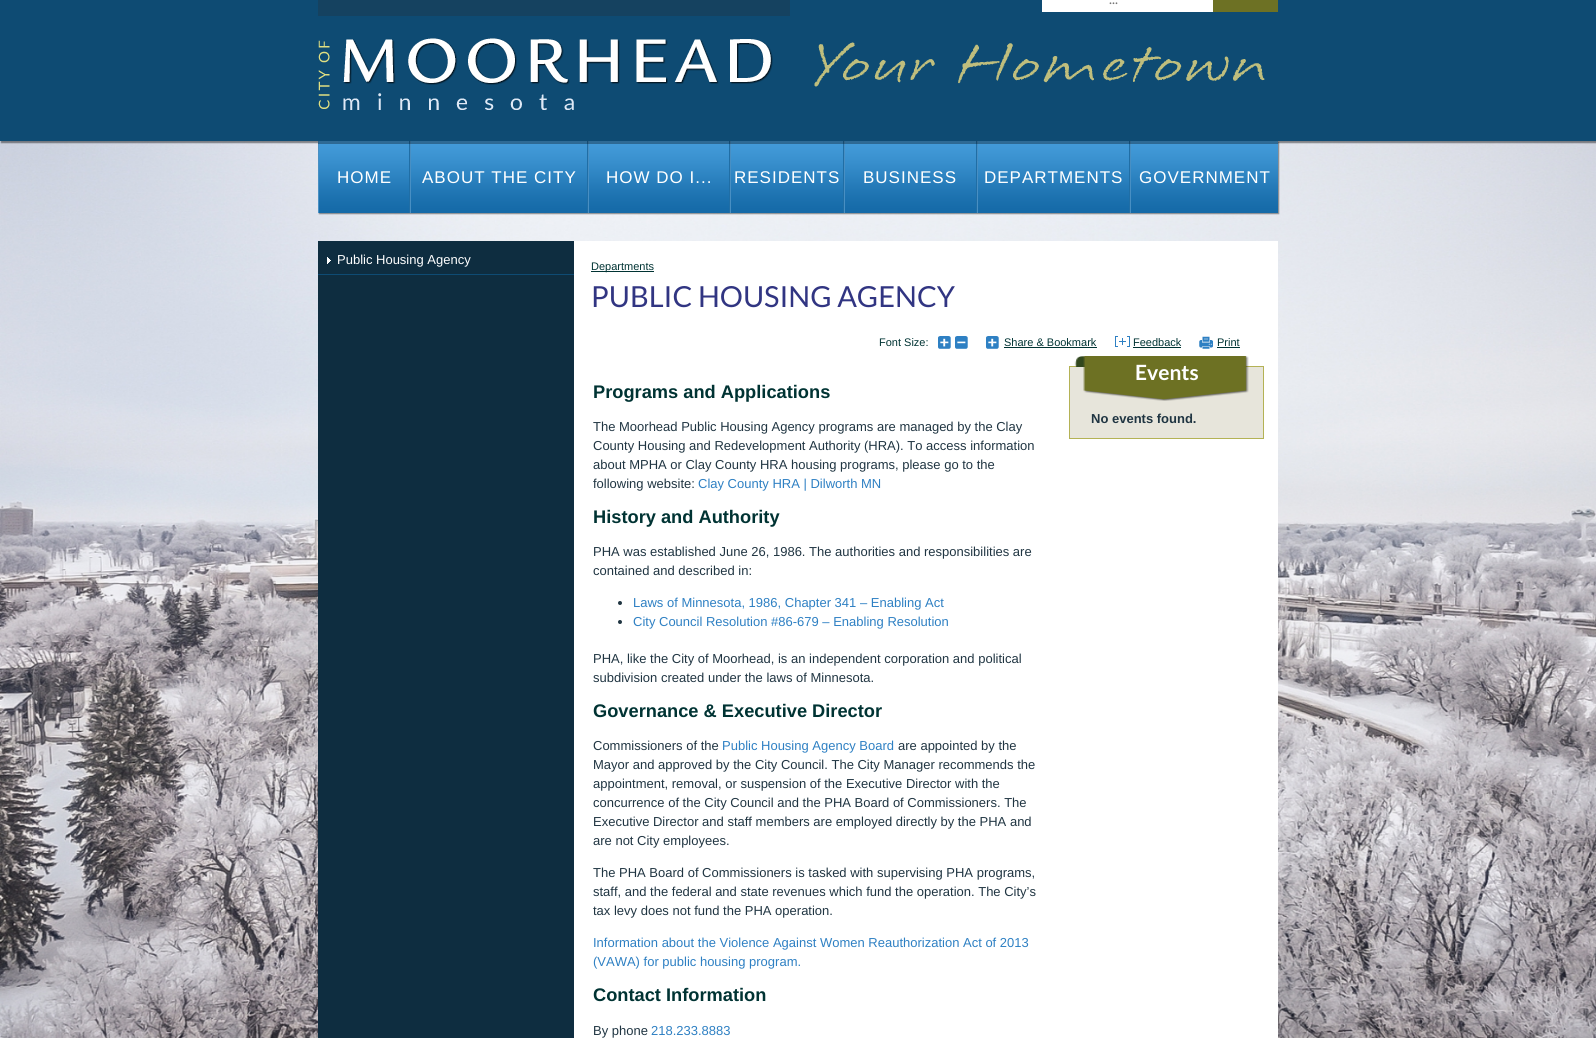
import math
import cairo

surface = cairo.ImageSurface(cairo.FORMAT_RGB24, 1596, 1038)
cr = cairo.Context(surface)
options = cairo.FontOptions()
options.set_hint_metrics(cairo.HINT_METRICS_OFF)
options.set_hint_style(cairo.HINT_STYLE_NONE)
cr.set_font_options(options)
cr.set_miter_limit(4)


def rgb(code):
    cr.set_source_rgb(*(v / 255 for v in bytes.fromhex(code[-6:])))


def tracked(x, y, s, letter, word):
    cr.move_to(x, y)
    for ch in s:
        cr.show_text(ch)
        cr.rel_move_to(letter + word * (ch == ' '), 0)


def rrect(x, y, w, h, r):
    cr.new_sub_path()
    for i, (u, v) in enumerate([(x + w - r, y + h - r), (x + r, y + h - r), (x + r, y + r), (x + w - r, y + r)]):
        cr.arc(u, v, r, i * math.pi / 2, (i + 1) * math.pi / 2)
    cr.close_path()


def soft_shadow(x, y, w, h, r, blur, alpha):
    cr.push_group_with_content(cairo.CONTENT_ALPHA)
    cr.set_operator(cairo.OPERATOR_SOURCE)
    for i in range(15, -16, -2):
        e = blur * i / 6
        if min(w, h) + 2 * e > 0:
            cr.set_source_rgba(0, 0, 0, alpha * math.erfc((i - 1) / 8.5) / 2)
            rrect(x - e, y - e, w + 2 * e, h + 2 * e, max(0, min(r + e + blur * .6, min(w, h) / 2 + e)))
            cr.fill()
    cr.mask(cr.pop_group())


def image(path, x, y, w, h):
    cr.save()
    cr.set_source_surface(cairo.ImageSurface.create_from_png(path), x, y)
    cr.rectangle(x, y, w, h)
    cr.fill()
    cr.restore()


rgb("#ffffff")
cr.paint()
image("img/1.png", 0, 141, 1596, 897)
rgb("#000000")
soft_shadow(1, -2, 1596, 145, 0, 0.5, 0.43)
for x, y, w, h, color in [
    (0, 0, 1596, 141, "#0e4b73"),
    (318, 0, 472, 16, "#154260"),
    (1042, 0, 171, 12, "#ffffff"),
    (1213, 0, 65, 12, "#6d7124"),
]:
    rgb(color)
    cr.rectangle(x, y, w, h)
    cr.fill()
image("img/2.png", 318, 38, 947, 72)
rgb("#ffffff")
cr.rectangle(574, 241, 704, 797)
cr.fill()
rgb("#000000")
soft_shadow(319, 142, 960, 72, 0, 0.5, 0.42)
image("img/3.png", 319, 141, 959, 72)
rgb("#206ea5")
cr.rectangle(409, 141, 1, 72)
cr.fill()
rgb("#488fc3")
cr.rectangle(318, 141, 1, 72)
cr.fill()
rgb("#206ea5")
cr.rectangle(587, 141, 1, 72)
cr.fill()
rgb("#488fc3")
cr.rectangle(410, 141, 1, 72)
cr.fill()
rgb("#206ea5")
cr.rectangle(729, 141, 1, 72)
cr.fill()
rgb("#488fc3")
cr.rectangle(588, 141, 1, 72)
cr.fill()
rgb("#206ea5")
cr.rectangle(843, 141, 1, 72)
cr.fill()
rgb("#488fc3")
cr.rectangle(730, 141, 1, 72)
cr.fill()
rgb("#206ea5")
cr.rectangle(976, 141, 1, 72)
cr.fill()
rgb("#488fc3")
cr.rectangle(844, 141, 1, 72)
cr.fill()
rgb("#206ea5")
cr.rectangle(1129, 141, 1, 72)
cr.fill()
rgb("#488fc3")
cr.rectangle(977, 141, 1, 72)
cr.rectangle(1130, 141, 1, 72)
cr.fill()
cr.set_source_rgba(0, 0, 0, 0.32)
cr.rectangle(318, 141, 960, 3)
cr.fill()
rgb("#0e2d40")
cr.rectangle(318, 241, 256, 797)
cr.fill()
rgb("#0e4b73")
cr.rectangle(318, 274, 256, 1)
cr.fill()
image("img/4.png", 327, 257, 4, 7)
rgb("#003333")
cr.rectangle(591, 271, 63, 1)
cr.fill()
image("img/5.png", 938, 336, 13, 13)
image("img/6.png", 955, 336, 13, 13)
image("img/5.png", 986, 336, 13, 13)
cr.rectangle(1004, 347, 93, 1)
cr.fill()
image("img/7.png", 1115, 336, 15, 11)
cr.rectangle(1133, 347, 48, 1)
cr.fill()
image("img/8.png", 1199, 336, 14, 13)
cr.rectangle(1217, 347, 23, 1)
cr.fill()
rgb("#203542")
cr.arc(620, 603, 2, 0, 2 * math.pi)
cr.fill()
cr.arc(620, 622, 2, 0, 2 * math.pi)
cr.fill()
rgb("#e7e5db")
cr.rectangle(1069.5, 366.5, 194, 72)
cr.fill_preserve()
rgb("#b4b255")
cr.set_line_width(1)
cr.stroke()
image("img/9.png", 1074, 356, 175, 45)
cr.select_font_face("Lato")
cr.set_font_size(14)
rgb("#757575")
cr.move_to(1109, 4)
cr.show_text("...")
cr.select_font_face("Liberation Sans")
cr.set_font_size(17)
rgb("#ffffff")
for x, y, s in [
    (337, 183, "HOME"),
    (422, 183, "ABOUT THE CITY"),
    (606, 183, "HOW DO I..."),
    (734, 183, "RESIDENTS"),
    (863, 183, "BUSINESS"),
    (984, 183, "DEPARTMENTS"),
    (1139, 183, "GOVERNMENT"),
]:
    tracked(x, y, s, 1, 0)
cr.set_font_size(13)
cr.move_to(337, 264)
cr.show_text("Public Housing Agency")
cr.set_font_size(11)
rgb("#003333")
cr.move_to(591, 270)
cr.show_text("Departments")
cr.select_font_face("Lato")
cr.set_font_size(29)
rgb("#313582")
cr.move_to(591, 307)
cr.show_text("PUBLIC HOUSING AGENCY")
cr.select_font_face("Liberation Sans")
cr.set_font_size(11)
rgb("#003333")
for x, y, s in [
    (879, 346, "Font Size:"),
    (1004, 346, "Share & Bookmark"),
    (1133, 346, "Feedback"),
    (1217, 346, "Print"),
]:
    cr.move_to(x, y)
    cr.show_text(s)
cr.select_font_face("Liberation Sans", cairo.FONT_SLANT_NORMAL, cairo.FONT_WEIGHT_BOLD)
cr.set_font_size(18.25)
cr.move_to(593, 398)
cr.show_text("Programs and Applications")
cr.select_font_face("Liberation Sans")
cr.set_font_size(13)
rgb("#203542")
for x, y, s in [
    (593, 431, "The Moorhead Public Housing Agency programs are managed by the Clay"),
    (593, 450, "County Housing and Redevelopment Authority (HRA). To access information"),
    (593, 469, "about MPHA or Clay County HRA housing programs, please go to the"),
    (593, 488, "following website:"),
]:
    cr.move_to(x, y)
    cr.show_text(s)
rgb("#2e80c3")
cr.move_to(698, 488)
cr.show_text("Clay County HRA | Dilworth MN")
cr.select_font_face("Liberation Sans", cairo.FONT_SLANT_NORMAL, cairo.FONT_WEIGHT_BOLD)
cr.set_font_size(18.25)
rgb("#003333")
cr.move_to(593, 523)
cr.show_text("History and Authority")
cr.select_font_face("Liberation Sans")
cr.set_font_size(13)
rgb("#203542")
cr.move_to(593, 556)
cr.show_text("PHA was established June 26, 1986. The authorities and responsibilities are")
cr.move_to(593, 575)
cr.show_text("contained and described in:")
rgb("#2e80c3")
cr.move_to(633, 607)
cr.show_text("Laws of Minnesota, 1986, Chapter 341 – Enabling Act")
cr.move_to(633, 626)
cr.show_text("City Council Resolution #86-679 – Enabling Resolution")
rgb("#203542")
cr.move_to(593, 663)
cr.show_text("PHA, like the City of Moorhead, is an independent corporation and political")
cr.move_to(593, 682)
cr.show_text("subdivision created under the laws of Minnesota.")
cr.select_font_face("Liberation Sans", cairo.FONT_SLANT_NORMAL, cairo.FONT_WEIGHT_BOLD)
cr.set_font_size(18.25)
rgb("#003333")
cr.move_to(593, 717)
cr.show_text("Governance & Executive Director")
cr.select_font_face("Liberation Sans")
cr.set_font_size(13)
rgb("#203542")
cr.move_to(593, 750)
cr.show_text("Commissioners of the")
rgb("#2e80c3")
cr.move_to(722, 750)
cr.show_text("Public Housing Agency Board")
rgb("#203542")
for x, y, s in [
    (898, 750, "are appointed by the"),
    (593, 769, "Mayor and approved by the City Council. The City Manager recommends the"),
    (593, 788, "appointment, removal, or suspension of the Executive Director with the"),
    (593, 807, "concurrence of the City Council and the PHA Board of Commissioners. The"),
    (593, 826, "Executive Director and staff members are employed directly by the PHA and"),
    (593, 845, "are not City employees."),
    (593, 877, "The PHA Board of Commissioners is tasked with supervising PHA programs,"),
    (593, 896, "staff, and the federal and state revenues which fund the operation. The City’s"),
    (593, 915, "tax levy does not fund the PHA operation."),
]:
    cr.move_to(x, y)
    cr.show_text(s)
rgb("#2e80c3")
cr.move_to(593, 947)
cr.show_text("Information about the Violence Against Women Reauthorization Act of 2013")
cr.move_to(593, 966)
cr.show_text("(VAWA) for public housing program.")
cr.select_font_face("Liberation Sans", cairo.FONT_SLANT_NORMAL, cairo.FONT_WEIGHT_BOLD)
cr.set_font_size(18.25)
rgb("#003333")
cr.move_to(593, 1001)
cr.show_text("Contact Information")
cr.select_font_face("Liberation Sans")
cr.set_font_size(13)
rgb("#203542")
cr.move_to(593, 1035)
cr.show_text("By phone")
rgb("#2e80c3")
cr.move_to(651, 1035)
cr.show_text("218.233.8883")
cr.select_font_face("Lato", cairo.FONT_SLANT_NORMAL, cairo.FONT_WEIGHT_BOLD)
cr.set_font_size(21)
rgb("#ffffff")
cr.move_to(1135, 380)
cr.show_text("Events")
cr.select_font_face("Liberation Sans", cairo.FONT_SLANT_NORMAL, cairo.FONT_WEIGHT_BOLD)
cr.set_font_size(13)
rgb("#203542")
cr.move_to(1091, 423)
cr.show_text("No events found.")
surface.write_to_png("page.png")
